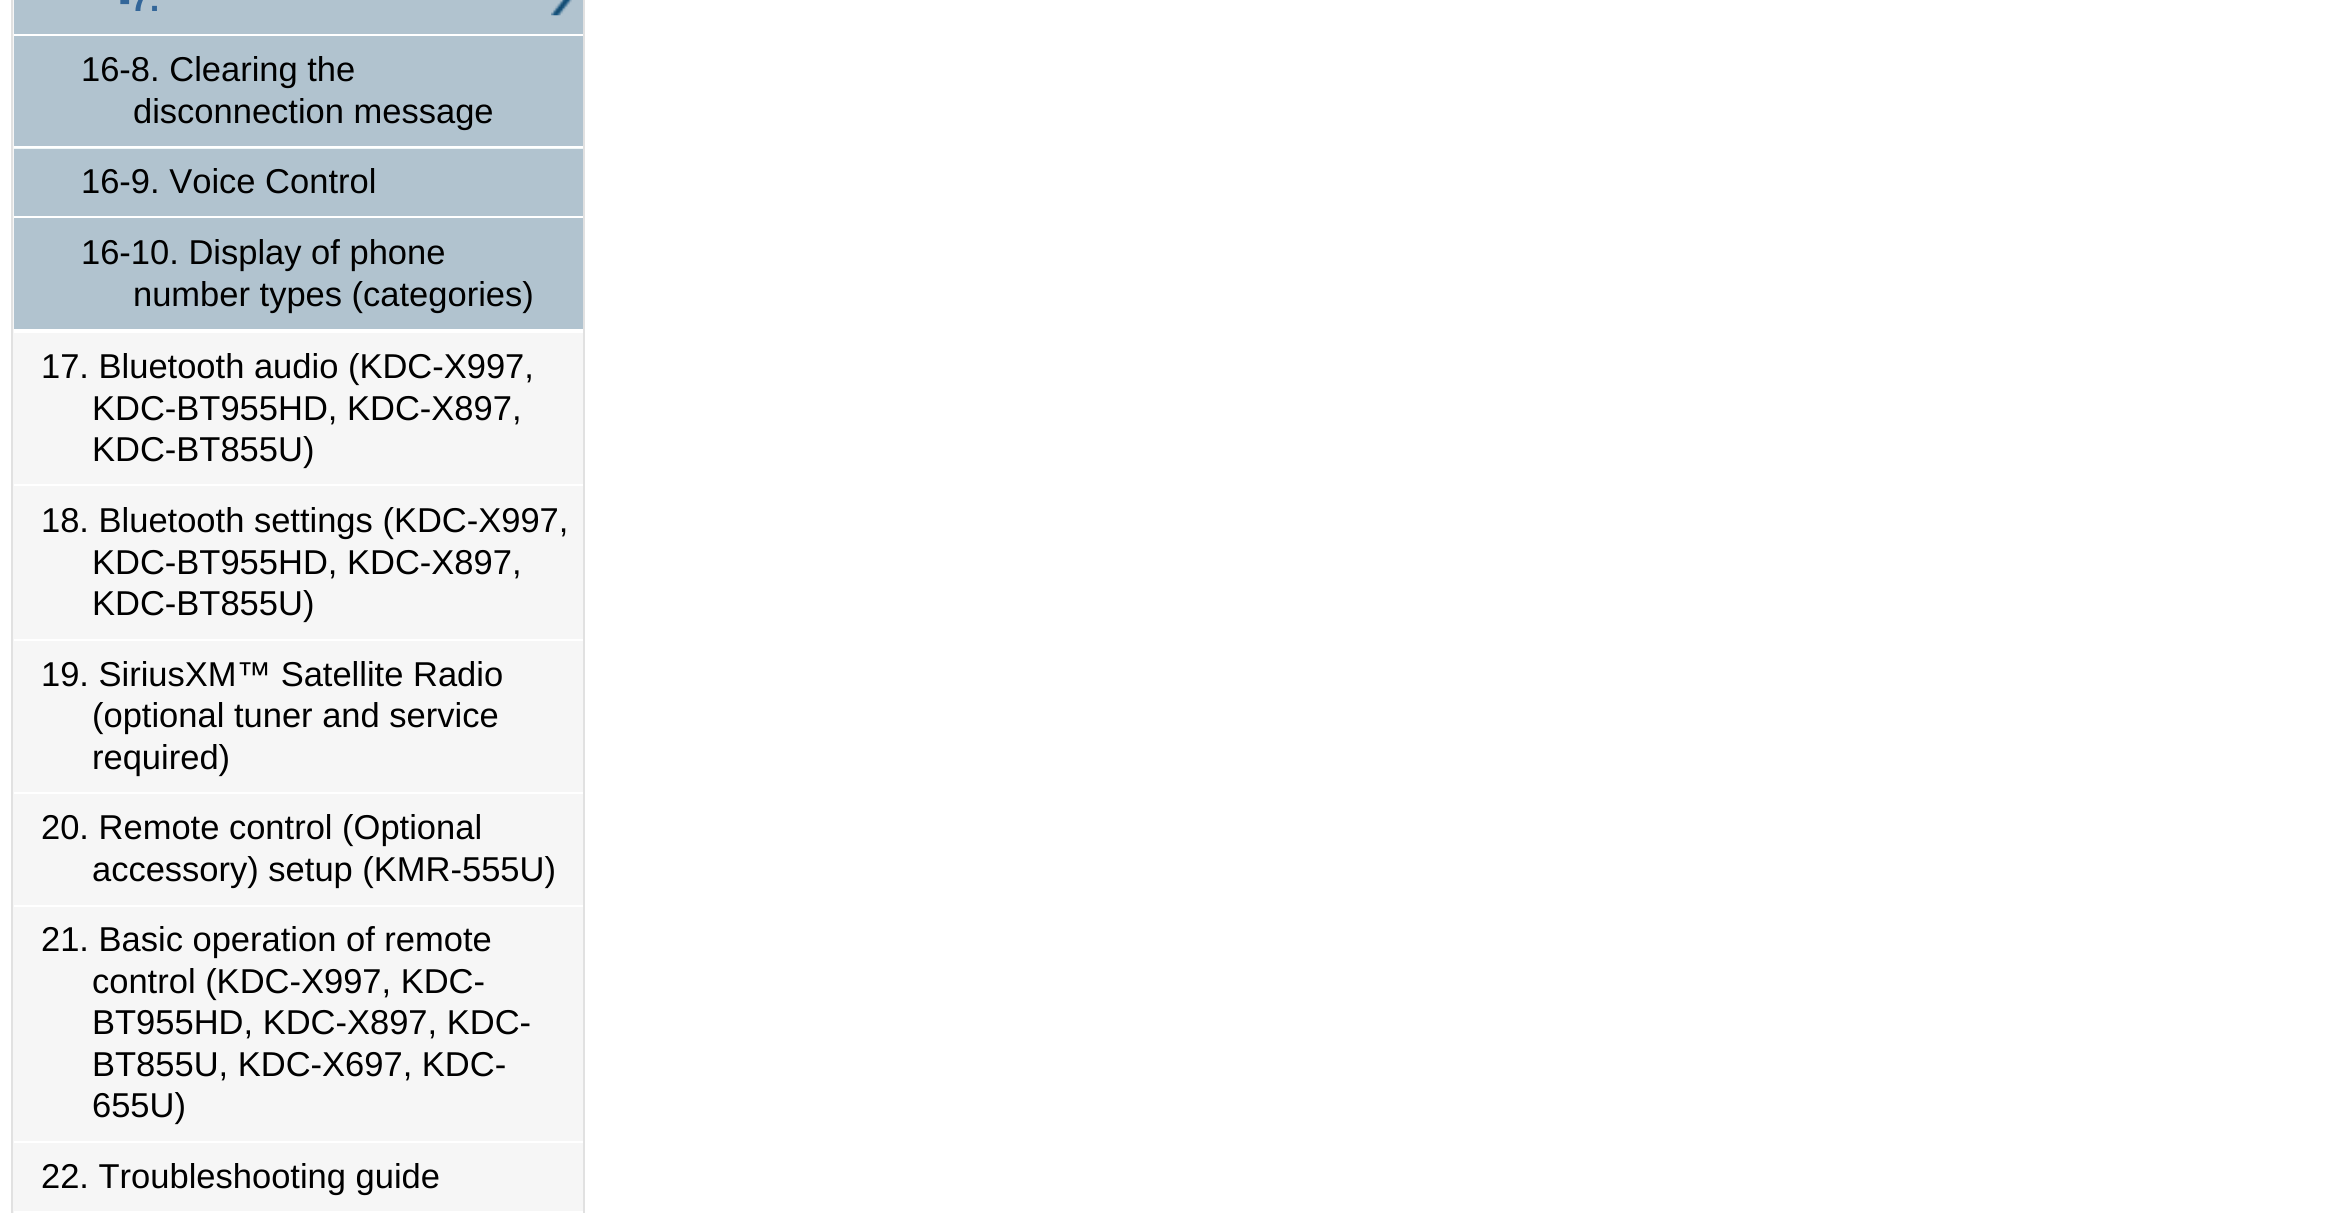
import math
import cairo

surface = cairo.ImageSurface(cairo.FORMAT_RGB24, 2347, 1213)
cr = cairo.Context(surface)
options = cairo.FontOptions()
options.set_hint_metrics(cairo.HINT_METRICS_OFF)
options.set_hint_style(cairo.HINT_STYLE_NONE)
cr.set_font_options(options)
cr.set_miter_limit(4)


def rgb(code):
    cr.set_source_rgb(*(v / 255 for v in bytes.fromhex(code[-6:])))


def image(path, x, y, w, h):
    cr.save()
    cr.set_source_surface(cairo.ImageSurface.create_from_png(path), x, y)
    cr.rectangle(x, y, w, h)
    cr.fill()
    cr.restore()


rgb("#ffffff")
cr.paint()
rgb("#f6f6f6")
cr.rectangle(12, -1, 572, 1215)
cr.fill_preserve()
rgb("#e1e1e1")
cr.stroke()
for x, y, w, h, color in [
    (14, 329, 569, 4, "#ffffff"),
    (14, 148, 569, 1, "#eef6f7"),
    (14, 0, 569, 34, "#b1c3cf"),
    (14, 34, 569, 2, "#ffffff"),
]:
    rgb(color)
    cr.rectangle(x, y, w, h)
    cr.fill()
image("img/1.png", 551, 0, 21, 16)
for x, y, w, h, color in [
    (14, 36, 569, 110, "#b1c3cf"),
    (14, 146, 569, 2, "#ffffff"),
    (14, 149, 569, 67, "#b1c3cf"),
    (14, 216, 569, 2, "#ffffff"),
    (14, 218, 569, 111, "#b1c3cf"),
    (14, 484, 569, 2, "#ffffff"),
    (14, 639, 569, 2, "#ffffff"),
    (14, 792, 569, 2, "#ffffff"),
    (14, 905, 569, 2, "#ffffff"),
    (14, 1141, 569, 2, "#ffffff"),
    (14, 1211, 569, 2, "#ffffff"),
]:
    rgb(color)
    cr.rectangle(x, y, w, h)
    cr.fill()
cr.select_font_face("Liberation Sans", cairo.FONT_SLANT_NORMAL, cairo.FONT_WEIGHT_BOLD)
cr.set_font_size(34.5)
rgb("#336699")
cr.move_to(119, 11)
cr.show_text("-7.")
cr.select_font_face("Liberation Sans")
rgb("#000000")
for x, y, s in [
    (81, 81, "16-8. Clearing the"),
    (133, 123, "disconnection message"),
    (81, 193, "16-9. Voice Control"),
    (81, 264, "16-10. Display of phone"),
    (133, 306, "number types (categories)"),
    (41, 378, "17. Bluetooth audio (KDC-X997,"),
    (92, 420, "KDC-BT955HD, KDC-X897,"),
    (92, 461, "KDC-BT855U)"),
    (41, 532, "18. Bluetooth settings (KDC-X997,"),
    (92, 574, "KDC-BT955HD, KDC-X897,"),
    (92, 615, "KDC-BT855U)"),
    (41, 686, "19. SiriusXM™ Satellite Radio"),
    (92, 727, "(optional tuner and service"),
    (92, 769, "required)"),
    (41, 839, "20. Remote control (Optional"),
    (92, 881, "accessory) setup (KMR-555U)"),
    (41, 951, "21. Basic operation of remote"),
    (92, 993, "control (KDC-X997, KDC-"),
    (92, 1034, "BT955HD, KDC-X897, KDC-"),
    (92, 1076, "BT855U, KDC-X697, KDC-"),
    (92, 1117, "655U)"),
    (41, 1188, "22. Troubleshooting guide"),
]:
    cr.move_to(x, y)
    cr.show_text(s)
surface.write_to_png("page.png")
